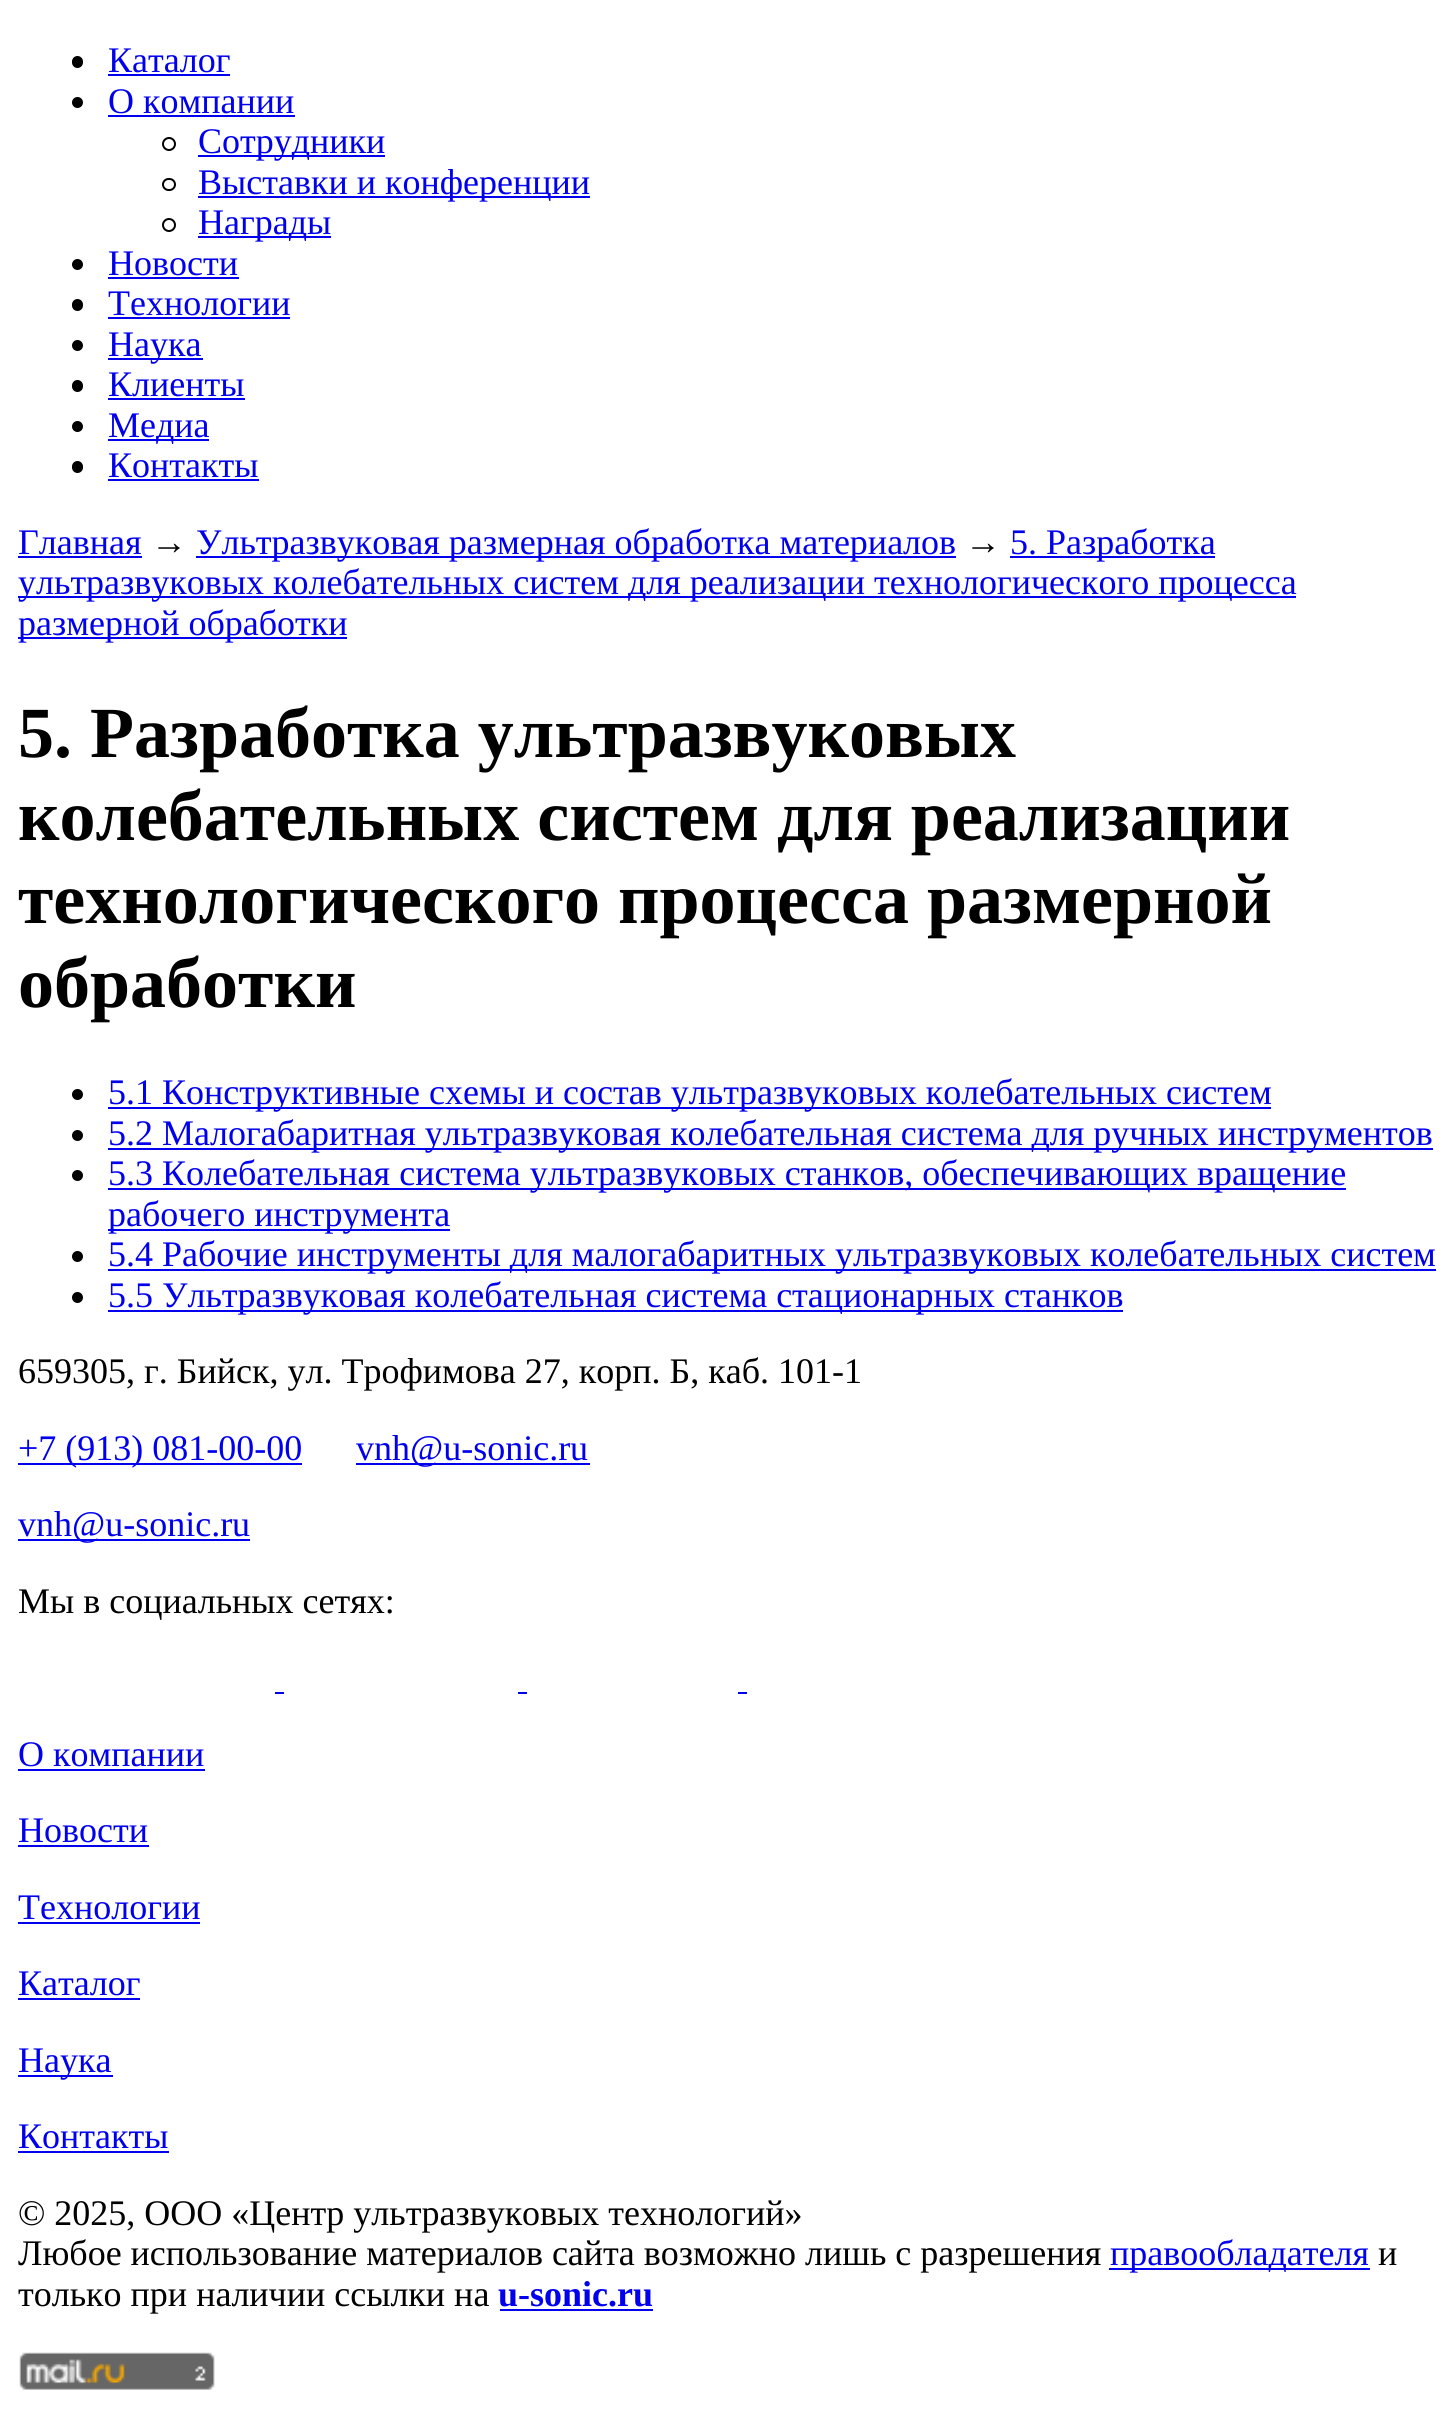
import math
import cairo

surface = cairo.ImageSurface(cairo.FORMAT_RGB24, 1455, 2417)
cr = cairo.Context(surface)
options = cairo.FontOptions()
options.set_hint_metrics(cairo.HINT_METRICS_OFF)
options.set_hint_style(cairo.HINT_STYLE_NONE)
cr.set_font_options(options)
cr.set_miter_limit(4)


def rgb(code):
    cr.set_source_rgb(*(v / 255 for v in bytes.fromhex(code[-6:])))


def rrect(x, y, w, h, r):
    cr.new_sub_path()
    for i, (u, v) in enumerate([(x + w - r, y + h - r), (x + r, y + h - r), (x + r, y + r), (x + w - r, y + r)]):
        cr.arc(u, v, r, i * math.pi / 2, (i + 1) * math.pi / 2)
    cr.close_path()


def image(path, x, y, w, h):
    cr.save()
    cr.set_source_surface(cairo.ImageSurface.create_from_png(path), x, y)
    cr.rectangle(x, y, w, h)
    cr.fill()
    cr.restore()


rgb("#ffffff")
cr.paint()
rgb("#000000")
rrect(72, 56, 11, 12, 5.5)
cr.fill()
rgb("#0000ee")
cr.rectangle(108, 74, 122, 2)
cr.fill()
rgb("#000000")
cr.arc(77.5, 102.5, 5.5, 0, 2 * math.pi)
cr.fill()
rgb("#0000ee")
cr.rectangle(108, 115, 187, 2)
cr.fill()
cr.arc(169, 144, 6, 0, 2 * math.pi)
rgb("#000000")
cr.stroke()
rgb("#0000ee")
cr.rectangle(198, 155, 187, 2)
cr.fill()
rrect(163, 179, 12, 11, 5.5)
rgb("#000000")
cr.stroke()
rgb("#0000ee")
cr.rectangle(198, 196, 392, 2)
cr.fill()
cr.arc(169, 225, 6, 0, 2 * math.pi)
rgb("#000000")
cr.stroke()
rgb("#0000ee")
cr.rectangle(198, 236, 133, 2)
cr.fill()
rgb("#000000")
cr.arc(77.5, 264.5, 5.5, 0, 2 * math.pi)
cr.fill()
rgb("#0000ee")
cr.rectangle(108, 277, 131, 2)
cr.fill()
rgb("#000000")
rrect(72, 299, 11, 12, 5.5)
cr.fill()
rgb("#0000ee")
cr.rectangle(108, 317, 182, 2)
cr.fill()
rgb("#000000")
cr.arc(77.5, 345.5, 5.5, 0, 2 * math.pi)
cr.fill()
rgb("#0000ee")
cr.rectangle(108, 358, 95, 2)
cr.fill()
rgb("#000000")
rrect(72, 380, 11, 12, 5.5)
cr.fill()
rgb("#0000ee")
cr.rectangle(108, 398, 137, 2)
cr.fill()
rgb("#000000")
cr.arc(77.5, 426.5, 5.5, 0, 2 * math.pi)
cr.fill()
rgb("#0000ee")
cr.rectangle(108, 439, 101, 2)
cr.fill()
rgb("#000000")
rrect(72, 461, 11, 12, 5.5)
cr.fill()
for x, y, w, h, color in [
    (108, 479, 151, 2, "#0000ee"),
    (18, 556, 124, 2, "#0000ee"),
    (196, 556, 760, 2, "#0000ee"),
    (1010, 556, 205, 2, "#0000ee"),
    (18, 596, 1278, 2, "#0000ee"),
    (18, 637, 329, 2, "#0000ee"),
]:
    rgb(color)
    cr.rectangle(x, y, w, h)
    cr.fill()
rgb("#000000")
cr.arc(77.5, 1094.5, 5.5, 0, 2 * math.pi)
cr.fill()
rgb("#0000ee")
cr.rectangle(108, 1107, 1163, 2)
cr.fill()
rgb("#000000")
cr.arc(77.5, 1135.5, 5.5, 0, 2 * math.pi)
cr.fill()
rgb("#0000ee")
cr.rectangle(108, 1148, 1325, 2)
cr.fill()
rgb("#000000")
cr.arc(77.5, 1175.5, 5.5, 0, 2 * math.pi)
cr.fill()
rgb("#0000ee")
cr.rectangle(108, 1188, 1238, 2)
cr.fill()
cr.rectangle(108, 1229, 342, 2)
cr.fill()
rgb("#000000")
cr.arc(77.5, 1256.5, 5.5, 0, 2 * math.pi)
cr.fill()
rgb("#0000ee")
cr.rectangle(108, 1269, 1328, 2)
cr.fill()
rgb("#000000")
cr.arc(77.5, 1297.5, 5.5, 0, 2 * math.pi)
cr.fill()
for x, y, w, h, color in [
    (108, 1310, 1015, 2, "#0000ee"),
    (18, 1463, 284, 2, "#0000ee"),
    (356, 1463, 234, 2, "#0000ee"),
    (18, 1539, 232, 2, "#0000ee"),
    (275, 1692, 9, 2, "#0000ee"),
    (518, 1692, 9, 2, "#0000ee"),
    (738, 1692, 9, 2, "#0000ee"),
    (18, 1769, 187, 2, "#0000ee"),
    (18, 1845, 131, 2, "#0000ee"),
    (18, 1922, 182, 2, "#0000ee"),
    (18, 1998, 122, 2, "#0000ee"),
    (18, 2075, 95, 2, "#0000ee"),
    (18, 2151, 151, 2, "#0000ee"),
    (1109, 2268, 261, 2, "#0000ee"),
    (500, 2309, 153, 2, "#0000ee"),
]:
    rgb(color)
    cr.rectangle(x, y, w, h)
    cr.fill()
image("img/1.png", 19, 2352, 196, 38)
cr.select_font_face("Liberation Serif")
cr.set_font_size(36)
for x, y, s in [
    (108, 72, "Каталог"),
    (108, 113, "О компании"),
    (198, 153, "Сотрудники"),
    (198, 194, "Выставки и конференции"),
    (198, 234, "Награды"),
    (108, 275, "Новости"),
    (108, 315, "Технологии"),
    (108, 356, "Наука"),
    (108, 396, "Клиенты"),
    (108, 437, "Медиа"),
    (108, 477, "Контакты"),
    (18, 554, "Главная"),
]:
    cr.move_to(x, y)
    cr.show_text(s)
rgb("#000000")
cr.move_to(151, 554)
cr.show_text("→")
rgb("#0000ee")
cr.move_to(196, 554)
cr.show_text("Ультразвуковая размерная обработка материалов")
rgb("#000000")
cr.move_to(965, 554)
cr.show_text("→")
rgb("#0000ee")
for x, y, s in [
    (1010, 554, "5. Разработка"),
    (18, 594, "ультразвуковых колебательных систем для реализации технологического процесса"),
    (18, 635, "размерной обработки"),
]:
    cr.move_to(x, y)
    cr.show_text(s)
cr.select_font_face("Liberation Serif", cairo.FONT_SLANT_NORMAL, cairo.FONT_WEIGHT_BOLD)
cr.set_font_size(72)
rgb("#000000")
for x, y, s in [
    (18, 757, "5. Разработка ультразвуковых"),
    (18, 840, "колебательных систем для реализации"),
    (18, 923, "технологического процесса размерной"),
    (18, 1007, "обработки"),
]:
    cr.move_to(x, y)
    cr.show_text(s)
cr.select_font_face("Liberation Serif")
cr.set_font_size(36)
rgb("#0000ee")
for x, y, s in [
    (108, 1104, "5.1 Конструктивные схемы и состав ультразвуковых колебательных систем"),
    (108, 1145, "5.2 Малогабаритная ультразвуковая колебательная система для ручных инструментов"),
    (108, 1185, "5.3 Колебательная система ультразвуковых станков, обеспечивающих вращение"),
    (108, 1226, "рабочего инструмента"),
    (108, 1266, "5.4 Рабочие инструменты для малогабаритных ультразвуковых колебательных систем"),
    (108, 1307, "5.5 Ультразвуковая колебательная система стационарных станков"),
]:
    cr.move_to(x, y)
    cr.show_text(s)
rgb("#000000")
cr.move_to(18, 1383)
cr.show_text("659305, г. Бийск, ул. Трофимова 27, корп. Б, каб. 101-1")
rgb("#0000ee")
for x, y, s in [
    (18, 1460, "+7 (913) 081-00-00"),
    (356, 1460, "vnh@u-sonic.ru"),
    (18, 1536, "vnh@u-sonic.ru"),
]:
    cr.move_to(x, y)
    cr.show_text(s)
rgb("#000000")
cr.move_to(18, 1613)
cr.show_text("Мы в социальных сетях:")
rgb("#0000ee")
for x, y, s in [
    (18, 1766, "О компании"),
    (18, 1842, "Новости"),
    (18, 1919, "Технологии"),
    (18, 1995, "Каталог"),
    (18, 2072, "Наука"),
    (18, 2148, "Контакты"),
]:
    cr.move_to(x, y)
    cr.show_text(s)
rgb("#000000")
cr.move_to(18, 2225)
cr.show_text("© 2025, ООО «Центр ультразвуковых технологий»")
cr.move_to(18, 2265)
cr.show_text("Любое использование материалов сайта возможно лишь с разрешения")
rgb("#0000ee")
cr.move_to(1110, 2265)
cr.show_text("правообладателя")
rgb("#000000")
cr.move_to(1378, 2265)
cr.show_text("и")
cr.move_to(18, 2306)
cr.show_text("только при наличии ссылки на")
cr.select_font_face("Liberation Serif", cairo.FONT_SLANT_NORMAL, cairo.FONT_WEIGHT_BOLD)
rgb("#0000ee")
cr.move_to(498, 2306)
cr.show_text("u-sonic.ru")
surface.write_to_png("page.png")
